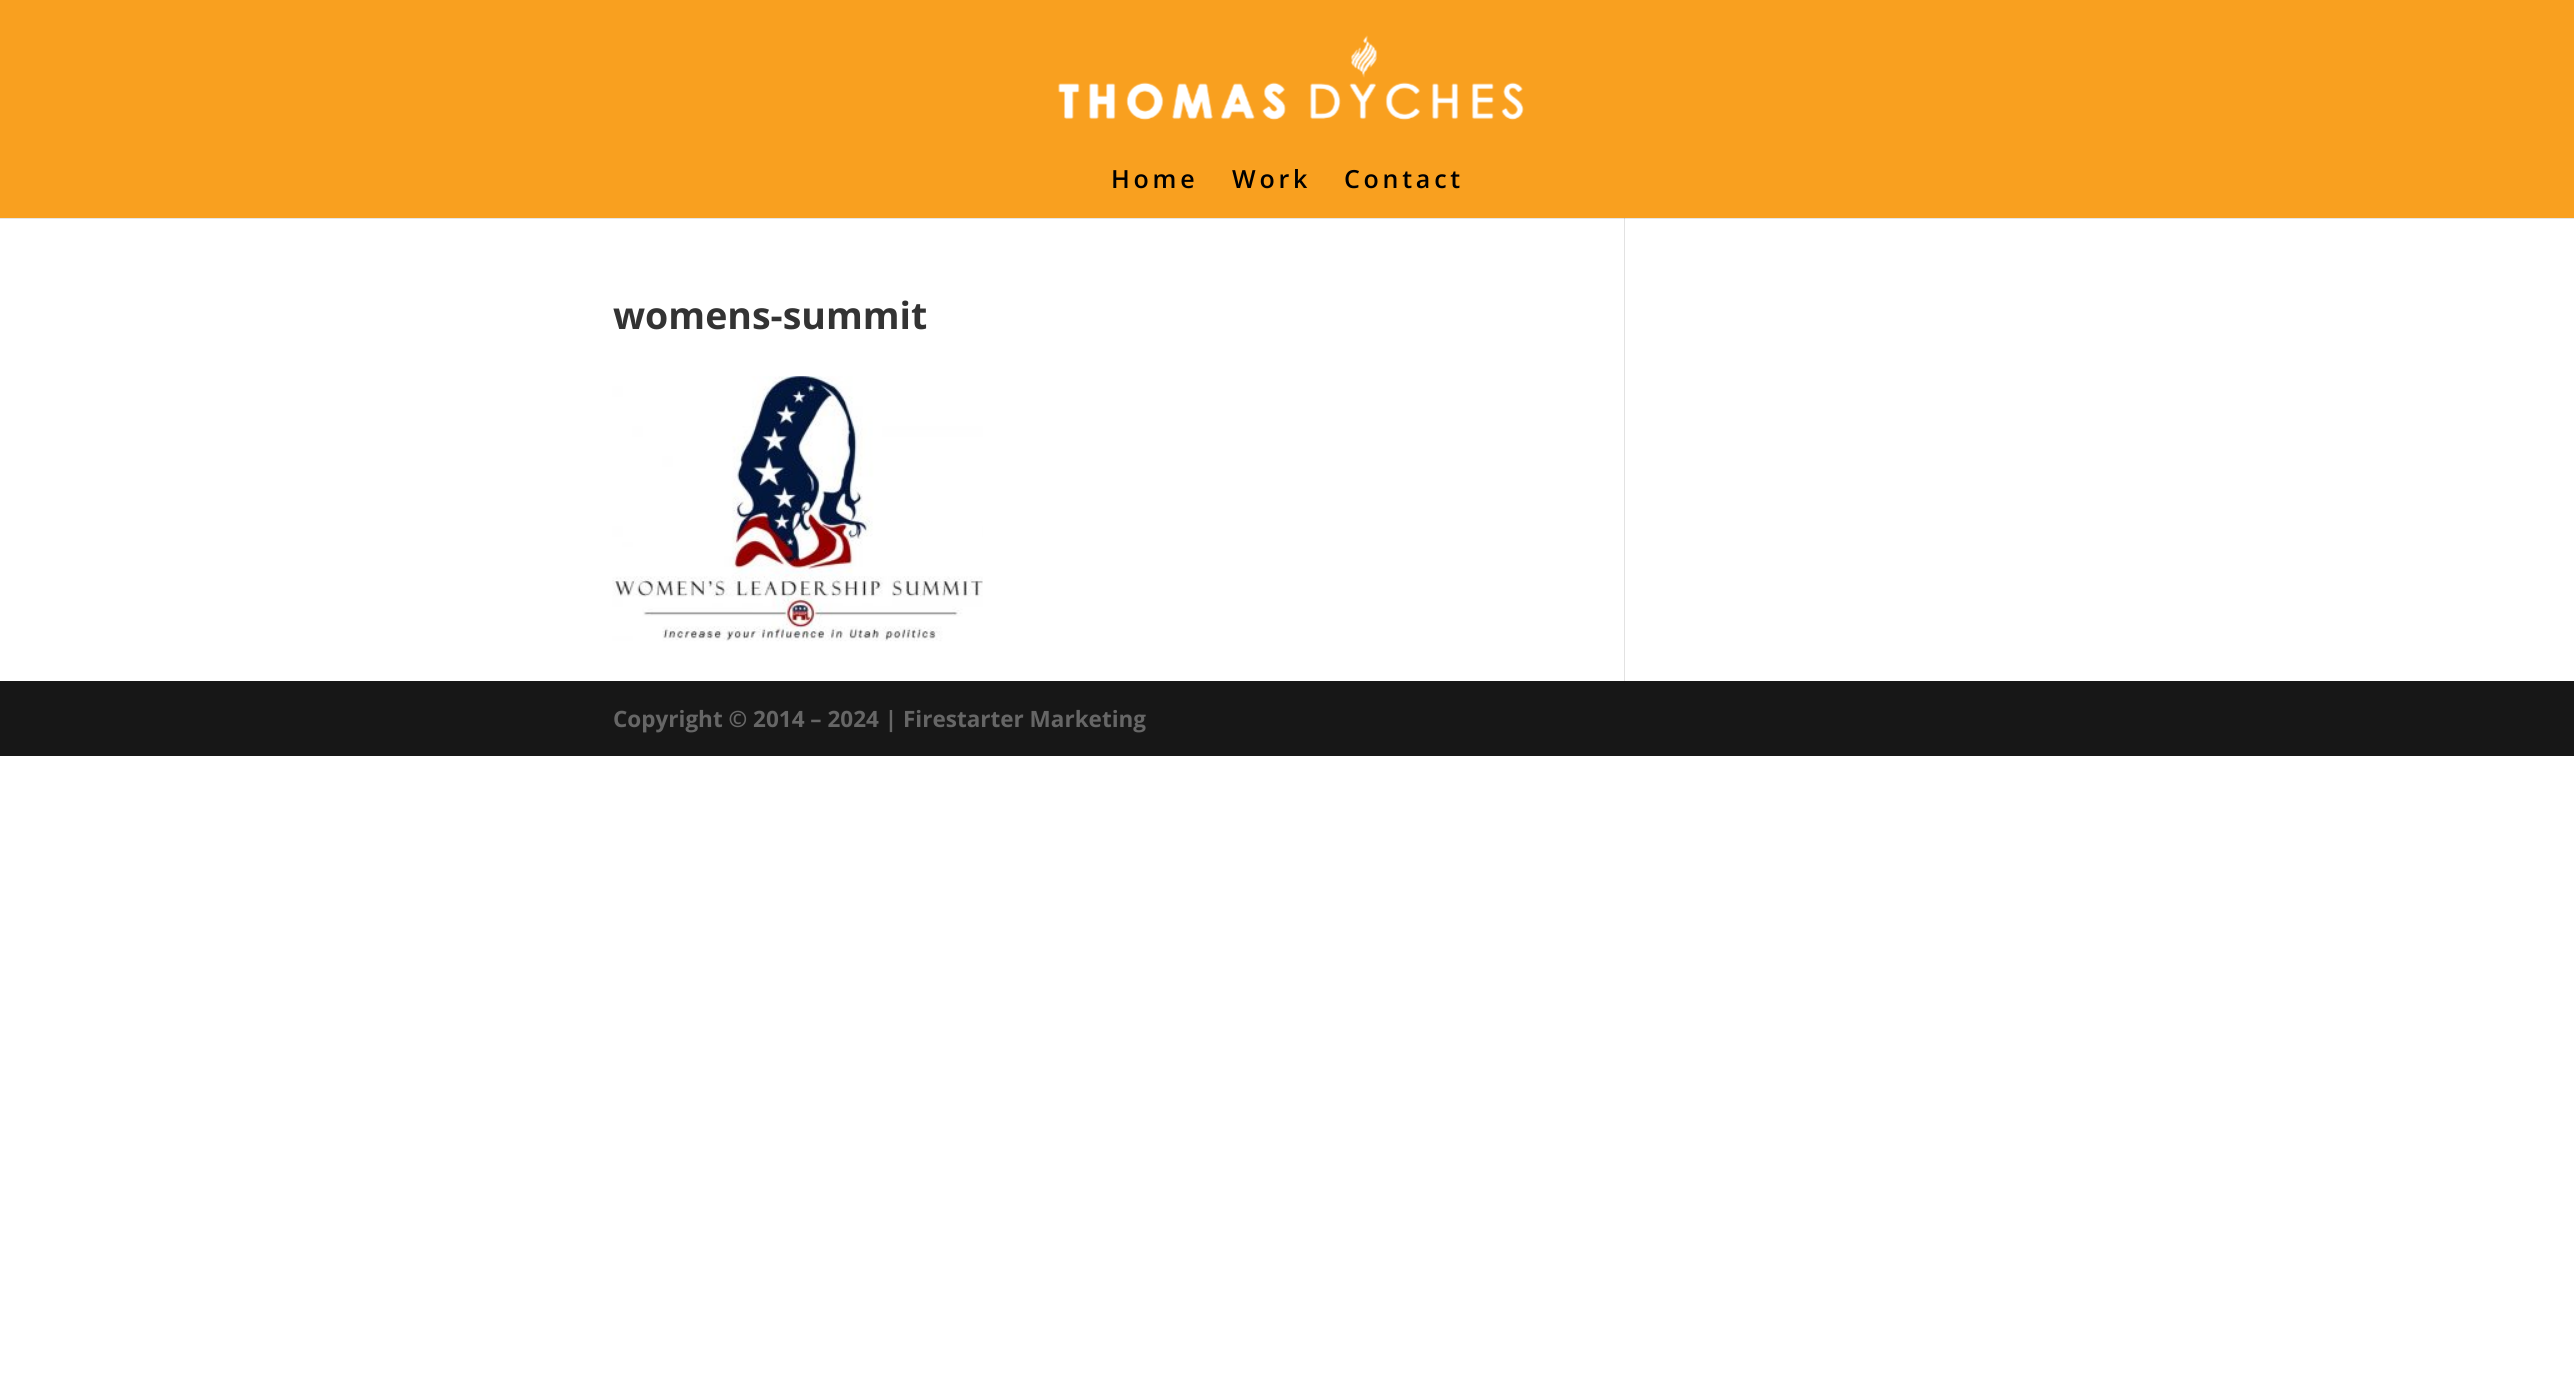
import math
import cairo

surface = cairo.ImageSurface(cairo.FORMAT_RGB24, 2574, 1400)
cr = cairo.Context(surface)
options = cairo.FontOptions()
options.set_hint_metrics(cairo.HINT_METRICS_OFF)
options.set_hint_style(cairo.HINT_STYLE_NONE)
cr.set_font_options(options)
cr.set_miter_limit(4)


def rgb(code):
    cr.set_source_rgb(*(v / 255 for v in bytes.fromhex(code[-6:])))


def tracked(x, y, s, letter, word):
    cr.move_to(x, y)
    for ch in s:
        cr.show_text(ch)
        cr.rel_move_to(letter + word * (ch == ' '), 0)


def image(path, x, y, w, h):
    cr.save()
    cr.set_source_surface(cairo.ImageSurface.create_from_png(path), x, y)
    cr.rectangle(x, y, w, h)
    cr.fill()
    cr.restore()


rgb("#ffffff")
cr.paint()
rgb("#e6e6e6")
cr.rectangle(0, 218, 2574, 1)
cr.fill()
rgb("#f9a01f")
cr.rectangle(0, 0, 2574, 218)
cr.fill()
image("img/1.png", 1058, 35, 466, 85)
image("img/2.png", 612, 376, 371, 266)
for x, y, w, h, color in [
    (1624, 218, 1, 463, "#e2e2e2"),
    (1624, 218, 1, 1, "#cbcbcb"),
    (0, 681, 2574, 75, "#171717"),
]:
    rgb(color)
    cr.rectangle(x, y, w, h)
    cr.fill()
cr.select_font_face("Open Sans SemiBold")
cr.set_font_size(25)
rgb("#000000")
for x, y, s in [
    (1111, 188, "Home"),
    (1232, 188, "Work"),
    (1344, 188, "Contact"),
]:
    tracked(x, y, s, 3.75, 0)
cr.select_font_face("Open Sans", cairo.FONT_SLANT_NORMAL, cairo.FONT_WEIGHT_BOLD)
cr.set_font_size(37.5)
rgb("#333333")
cr.move_to(613, 329)
cr.show_text("womens-summit")
cr.set_font_size(22.5)
rgb("#666666")
cr.move_to(613, 727)
cr.show_text("Copyright © 2014 – 2024 | Firestarter Marketing")
surface.write_to_png("page.png")
